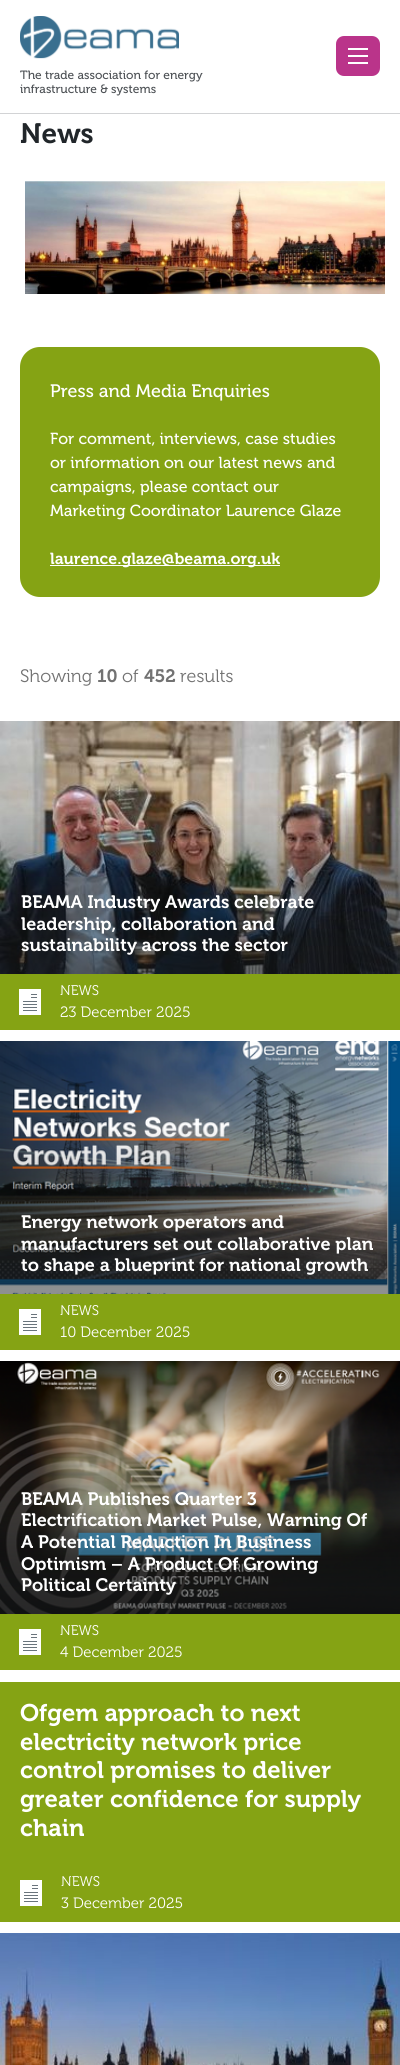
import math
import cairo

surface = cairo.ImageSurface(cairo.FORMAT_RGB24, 400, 2065)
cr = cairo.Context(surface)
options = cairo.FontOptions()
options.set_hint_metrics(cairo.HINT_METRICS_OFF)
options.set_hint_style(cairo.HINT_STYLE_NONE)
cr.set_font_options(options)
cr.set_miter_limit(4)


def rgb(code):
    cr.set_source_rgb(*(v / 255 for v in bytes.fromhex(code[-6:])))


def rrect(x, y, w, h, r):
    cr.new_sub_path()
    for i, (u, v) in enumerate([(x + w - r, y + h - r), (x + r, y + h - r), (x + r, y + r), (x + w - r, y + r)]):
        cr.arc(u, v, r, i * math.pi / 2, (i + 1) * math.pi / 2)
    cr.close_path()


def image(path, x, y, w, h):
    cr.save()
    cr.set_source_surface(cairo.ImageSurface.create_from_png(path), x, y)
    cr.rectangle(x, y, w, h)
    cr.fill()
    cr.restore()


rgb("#ffffff")
cr.paint()
rgb("#d2d3d5")
cr.rectangle(0, 113, 400, 1)
cr.fill()
rgb("#ba348a")
rrect(337, 37, 42, 38, 7)
cr.fill_preserve()
cr.stroke()
for x, y, w, h, color in [
    (348, 55, 20, 2, "#ffffff"),
    (348, 48, 20, 2, "#ffffff"),
    (348, 62, 20, 2, "#ffffff"),
]:
    rgb(color)
    cr.rectangle(x, y, w, h)
    cr.fill()
image("img/1.png", 20, 16, 159, 43)
image("img/2.png", 25, 181, 360, 113)
rgb("#85a314")
rrect(20, 347, 360, 250, 20)
cr.fill()
rgb("#ffffff")
cr.rectangle(50, 565, 230, 1)
cr.fill()
image("img/3.png", 0, 721, 400, 253)
rgb("#85a314")
cr.rectangle(0, 974, 400, 56)
cr.fill()
rgb("#ffffff")
cr.rectangle(19, 989, 22, 26)
cr.fill()
image("img/4.png", 23, 994, 14, 17)
image("img/5.png", 0, 1041, 400, 253)
rgb("#85a314")
cr.rectangle(0, 1294, 400, 56)
cr.fill()
rgb("#ffffff")
cr.rectangle(19, 1309, 22, 26)
cr.fill()
image("img/4.png", 23, 1314, 14, 17)
image("img/6.png", 0, 1361, 400, 253)
rgb("#85a314")
cr.rectangle(0, 1614, 400, 56)
cr.fill()
rgb("#ffffff")
cr.rectangle(19, 1629, 22, 26)
cr.fill()
image("img/4.png", 23, 1634, 14, 17)
rgb("#85a314")
cr.rectangle(0, 1682, 400, 240)
cr.fill()
rgb("#ffffff")
cr.rectangle(20, 1880, 22, 26)
cr.fill()
image("img/4.png", 24, 1885, 14, 17)
image("img/7.png", 0, 1933, 400, 132)
cr.select_font_face("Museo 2")
cr.set_font_size(12)
rgb("#4d5155")
cr.move_to(20, 79)
cr.show_text("The trade association for energy")
cr.move_to(20, 93)
cr.show_text("infrastructure & systems")
cr.select_font_face("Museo")
cr.set_font_size(28)
rgb("#21262a")
cr.move_to(20, 143)
cr.show_text("News")
cr.select_font_face("Museo 2")
cr.set_font_size(18)
rgb("#ffffff")
cr.move_to(50, 397)
cr.show_text("Press and Media Enquiries")
cr.set_font_size(16)
for x, y, s in [
    (50, 444, "For comment, interviews, case studies"),
    (50, 468, "or information on our latest news and"),
    (50, 492, "campaigns, please contact our"),
    (50, 516, "Marketing Coordinator Laurence Glaze"),
]:
    cr.move_to(x, y)
    cr.show_text(s)
cr.select_font_face("Museo")
cr.move_to(50, 564)
cr.show_text("laurence.glaze@beama.org.uk")
cr.select_font_face("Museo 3")
cr.set_font_size(18)
rgb("#727272")
cr.move_to(20, 682)
cr.show_text("Showing")
cr.select_font_face("Museo")
cr.move_to(97, 682)
cr.show_text("10")
cr.select_font_face("Museo 3")
cr.move_to(122, 682)
cr.show_text("of")
cr.select_font_face("Museo")
cr.move_to(144, 682)
cr.show_text("452")
cr.select_font_face("Museo 3")
cr.move_to(180, 682)
cr.show_text("results")
cr.select_font_face("Museo")
rgb("#ffffff")
for x, y, s in [
    (21, 908, "BEAMA Industry Awards celebrate"),
    (21, 930, "leadership, collaboration and"),
    (21, 951, "sustainability across the sector"),
]:
    cr.move_to(x, y)
    cr.show_text(s)
cr.select_font_face("Museo 3")
cr.set_font_size(14)
cr.move_to(60, 995)
cr.show_text("NEWS")
cr.set_font_size(15)
cr.move_to(60, 1017)
cr.show_text("23 December 2025")
cr.select_font_face("Museo")
cr.set_font_size(18)
for x, y, s in [
    (21, 1228, "Energy network operators and"),
    (21, 1250, "manufacturers set out collaborative plan"),
    (21, 1271, "to shape a blueprint for national growth"),
]:
    cr.move_to(x, y)
    cr.show_text(s)
cr.select_font_face("Museo 3")
cr.set_font_size(14)
cr.move_to(60, 1315)
cr.show_text("NEWS")
cr.set_font_size(15)
cr.move_to(60, 1337)
cr.show_text("10 December 2025")
cr.select_font_face("Museo")
cr.set_font_size(18)
for x, y, s in [
    (21, 1505, "BEAMA Publishes Quarter 3"),
    (21, 1526, "Electrification Market Pulse, Warning Of"),
    (21, 1548, "A Potential Reduction In Business"),
    (21, 1570, "Optimism – A Product Of Growing"),
    (21, 1591, "Political Certainty"),
]:
    cr.move_to(x, y)
    cr.show_text(s)
cr.select_font_face("Museo 3")
cr.set_font_size(14)
cr.move_to(60, 1635)
cr.show_text("NEWS")
cr.set_font_size(15)
cr.move_to(60, 1657)
cr.show_text("4 December 2025")
cr.select_font_face("Museo")
cr.set_font_size(24)
for x, y, s in [
    (20, 1721, "Ofgem approach to next"),
    (20, 1750, "electricity network price"),
    (20, 1778, "control promises to deliver"),
    (20, 1807, "greater confidence for supply"),
    (20, 1836, "chain"),
]:
    cr.move_to(x, y)
    cr.show_text(s)
cr.select_font_face("Museo 3")
cr.set_font_size(14)
cr.move_to(61, 1886)
cr.show_text("NEWS")
cr.set_font_size(15)
cr.move_to(61, 1908)
cr.show_text("3 December 2025")
surface.write_to_png("page.png")
